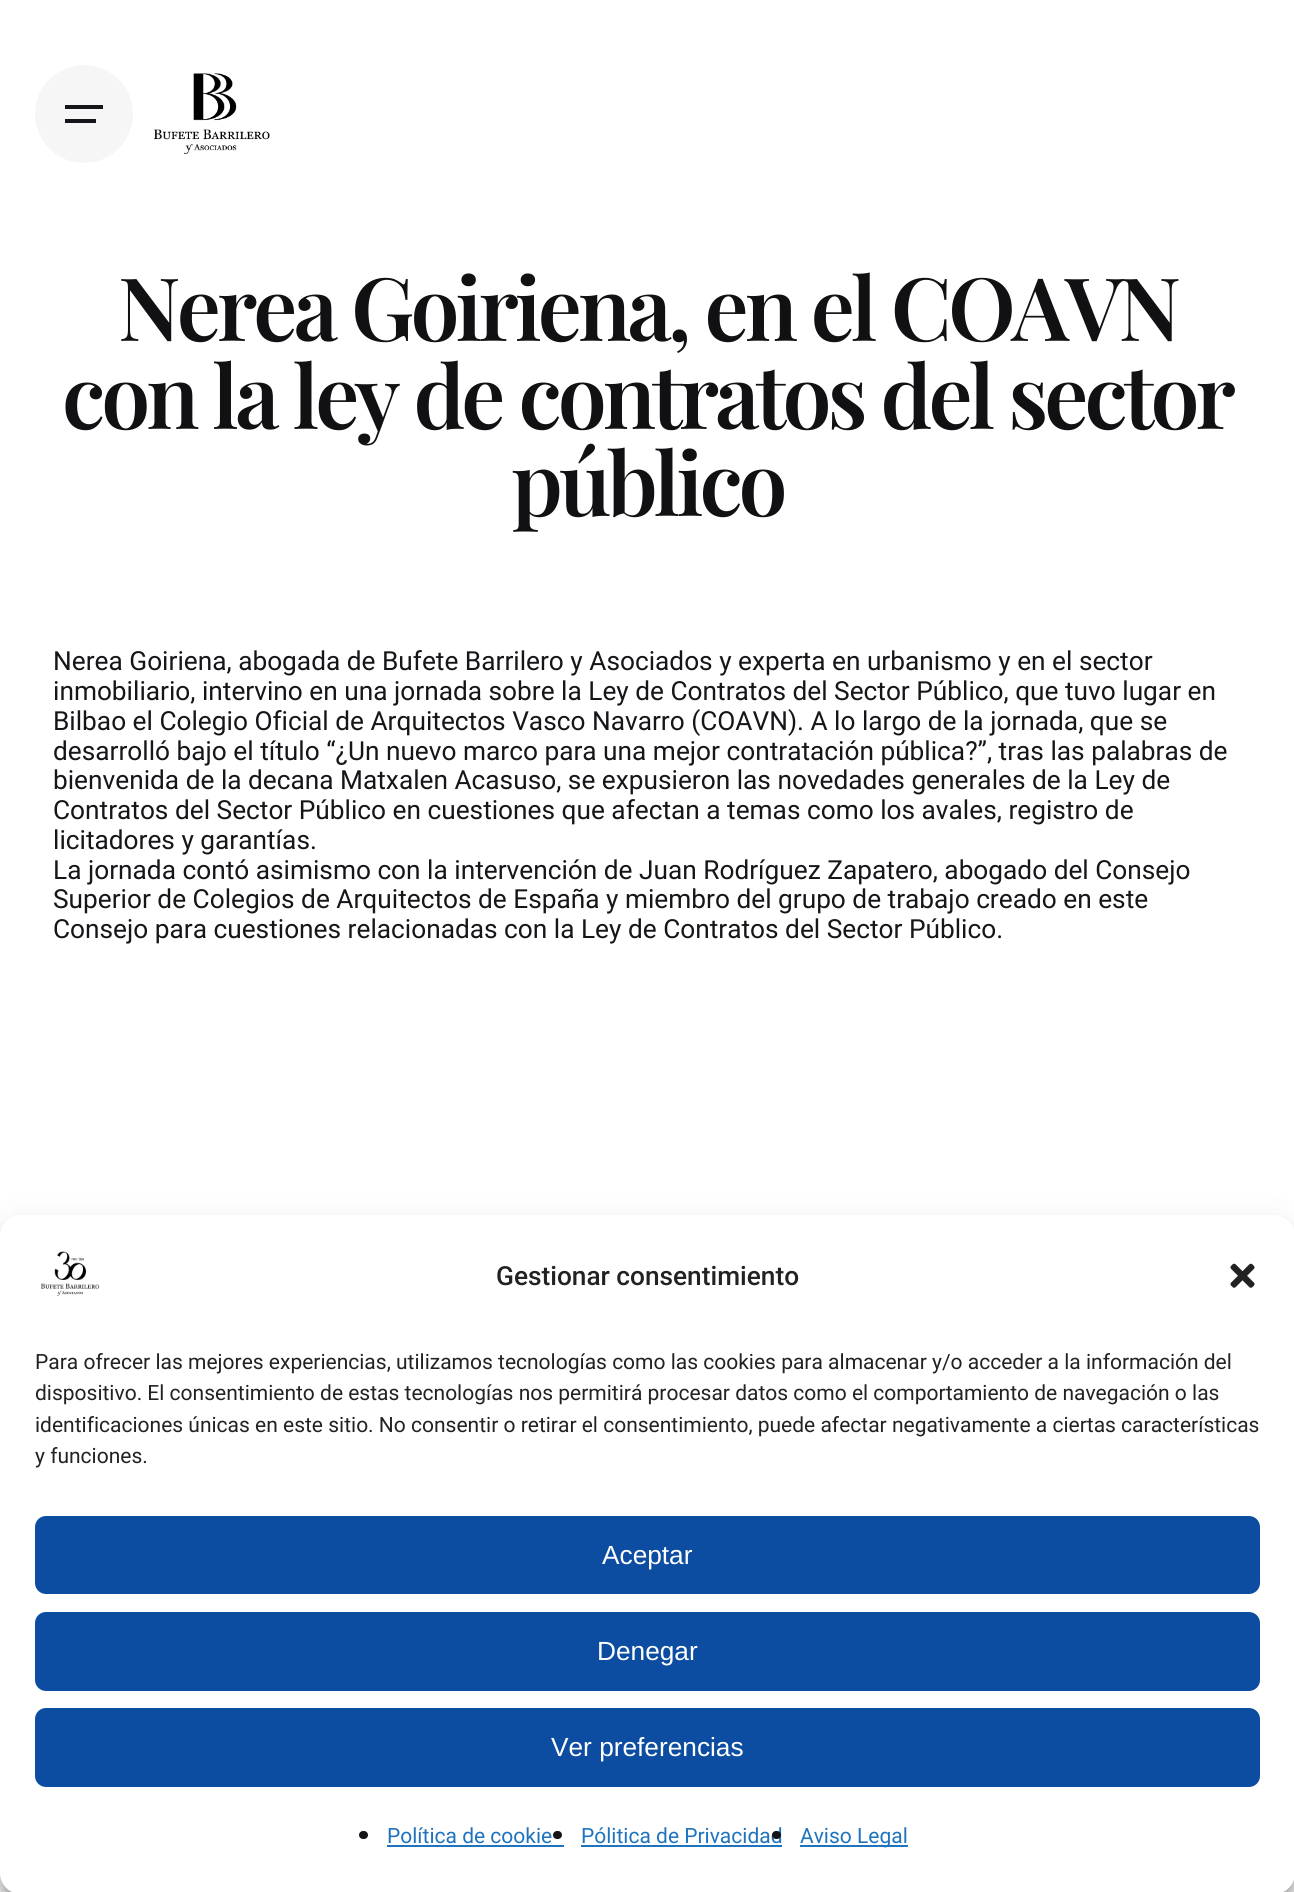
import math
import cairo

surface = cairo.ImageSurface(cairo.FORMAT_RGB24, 1294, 1892)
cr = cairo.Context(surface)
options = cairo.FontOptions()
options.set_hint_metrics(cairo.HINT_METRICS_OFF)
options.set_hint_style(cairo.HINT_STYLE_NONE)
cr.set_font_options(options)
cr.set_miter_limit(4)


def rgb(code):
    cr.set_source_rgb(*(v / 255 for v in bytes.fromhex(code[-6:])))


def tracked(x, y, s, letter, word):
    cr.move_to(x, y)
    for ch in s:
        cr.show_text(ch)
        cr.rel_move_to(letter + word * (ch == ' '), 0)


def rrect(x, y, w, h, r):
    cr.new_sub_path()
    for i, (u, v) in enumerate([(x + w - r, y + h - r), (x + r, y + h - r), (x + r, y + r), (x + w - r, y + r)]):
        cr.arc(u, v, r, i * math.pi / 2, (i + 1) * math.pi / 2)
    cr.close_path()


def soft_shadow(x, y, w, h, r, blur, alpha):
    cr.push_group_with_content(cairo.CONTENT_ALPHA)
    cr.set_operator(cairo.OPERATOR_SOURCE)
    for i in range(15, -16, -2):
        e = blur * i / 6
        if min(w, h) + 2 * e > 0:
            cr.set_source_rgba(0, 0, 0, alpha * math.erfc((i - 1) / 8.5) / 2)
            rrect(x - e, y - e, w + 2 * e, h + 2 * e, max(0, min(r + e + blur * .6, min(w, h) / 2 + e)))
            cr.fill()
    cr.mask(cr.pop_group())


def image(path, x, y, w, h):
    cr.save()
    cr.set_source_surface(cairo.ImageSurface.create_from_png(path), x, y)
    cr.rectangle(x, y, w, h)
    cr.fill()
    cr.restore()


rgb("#ffffff")
cr.paint()
rgb("#f6f6f6")
cr.arc(84, 114, 49, 0, 2 * math.pi)
cr.fill()
rgb("#161519")
cr.rectangle(65, 105, 38, 4)
cr.fill()
cr.rectangle(65, 119, 31, 4)
cr.fill()
image("img/1.png", 154, 73, 116, 81)
rgb("#000000")
soft_shadow(0, 1225, 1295, 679, 21, 5, 0.23)
soft_shadow(0, 1232, 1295, 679, 21, 17.5, 0.19)
rgb("#ffffff")
rrect(0, 1215, 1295, 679, 21)
cr.fill()
image("img/2.png", 41, 1251, 59, 46)
image("img/3.png", 1230, 1263, 25, 25)
rgb("#0c4da2")
rrect(36, 1517, 1223, 76, 10)
cr.fill_preserve()
cr.stroke()
rrect(36, 1613, 1223, 77, 10)
cr.fill_preserve()
cr.stroke()
rrect(36, 1709, 1223, 77, 10)
cr.fill_preserve()
cr.stroke()
rgb("#161519")
rrect(359, 1831, 9, 8, 4)
cr.fill()
rgb("#1e73be")
cr.rectangle(387, 1845, 177, 2)
cr.fill()
rgb("#161519")
rrect(553, 1831, 9, 8, 4)
cr.fill()
rgb("#1e73be")
cr.rectangle(581, 1845, 201, 2)
cr.fill()
cr.rectangle(800, 1845, 108, 2)
cr.fill()
cr.select_font_face("Playfair Display SemiBold")
cr.set_font_size(87.5)
rgb("#111013")
for x, y, s in [
    (118, 341, "Nerea Goiriena, en el COAVN"),
    (62, 429, "con la ley de contratos del sector"),
    (511, 516, "público"),
]:
    tracked(x, y, s, -3.95, 0)
cr.select_font_face("Roboto")
cr.set_font_size(26.25)
rgb("#161519")
for x, y, s in [
    (53, 670, "Nerea Goiriena, abogada de Bufete Barrilero y Asociados y experta en urbanismo y en el sector"),
    (53, 700, "inmobiliario, intervino en una jornada sobre la Ley de Contratos del Sector Público, que tuvo lugar en"),
    (53, 730, "Bilbao el Colegio Oficial de Arquitectos Vasco Navarro (COAVN). A lo largo de la jornada, que se"),
    (53, 760, "desarrolló bajo el título “¿Un nuevo marco para una mejor contratación pública?”, tras las palabras de"),
    (53, 789, "bienvenida de la decana Matxalen Acasuso, se expusieron las novedades generales de la Ley de"),
    (53, 819, "Contratos del Sector Público en cuestiones que afectan a temas como los avales, registro de"),
    (53, 849, "licitadores y garantías."),
    (53, 879, "La jornada contó asimismo con la intervención de Juan Rodríguez Zapatero, abogado del Consejo"),
    (53, 908, "Superior de Colegios de Arquitectos de España y miembro del grupo de trabajo creado en este"),
    (53, 938, "Consejo para cuestiones relacionadas con la Ley de Contratos del Sector Público."),
]:
    cr.move_to(x, y)
    cr.show_text(s)
cr.select_font_face("Roboto Medium")
rgb("#222222")
cr.move_to(496, 1285)
cr.show_text("Gestionar consentimiento")
cr.select_font_face("Roboto")
cr.set_font_size(21)
for x, y, s in [
    (35, 1369, "Para ofrecer las mejores experiencias, utilizamos tecnologías como las cookies para almacenar y/o acceder a la información del"),
    (35, 1400, "dispositivo. El consentimiento de estas tecnologías nos permitirá procesar datos como el comportamiento de navegación o las"),
    (35, 1432, "identificaciones únicas en este sitio. No consentir o retirar el consentimiento, puede afectar negativamente a ciertas características"),
    (35, 1463, "y funciones."),
]:
    cr.move_to(x, y)
    cr.show_text(s)
cr.select_font_face("Liberation Sans")
cr.set_font_size(26.25)
rgb("#ffffff")
for x, y, s in [
    (602, 1564, "Aceptar"),
    (597, 1660, "Denegar"),
    (551, 1756, "Ver preferencias"),
]:
    cr.move_to(x, y)
    cr.show_text(s)
cr.select_font_face("Roboto")
cr.set_font_size(21)
rgb("#1e73be")
cr.move_to(387, 1843)
cr.show_text("Política de cookie")
cr.move_to(581, 1843)
cr.show_text("Pólitica de Privacidad")
rgb("#161519")
rrect(772, 1831, 9, 8, 4)
cr.fill()
rgb("#1e73be")
cr.move_to(800, 1843)
cr.show_text("Aviso Legal")
surface.write_to_png("page.png")
